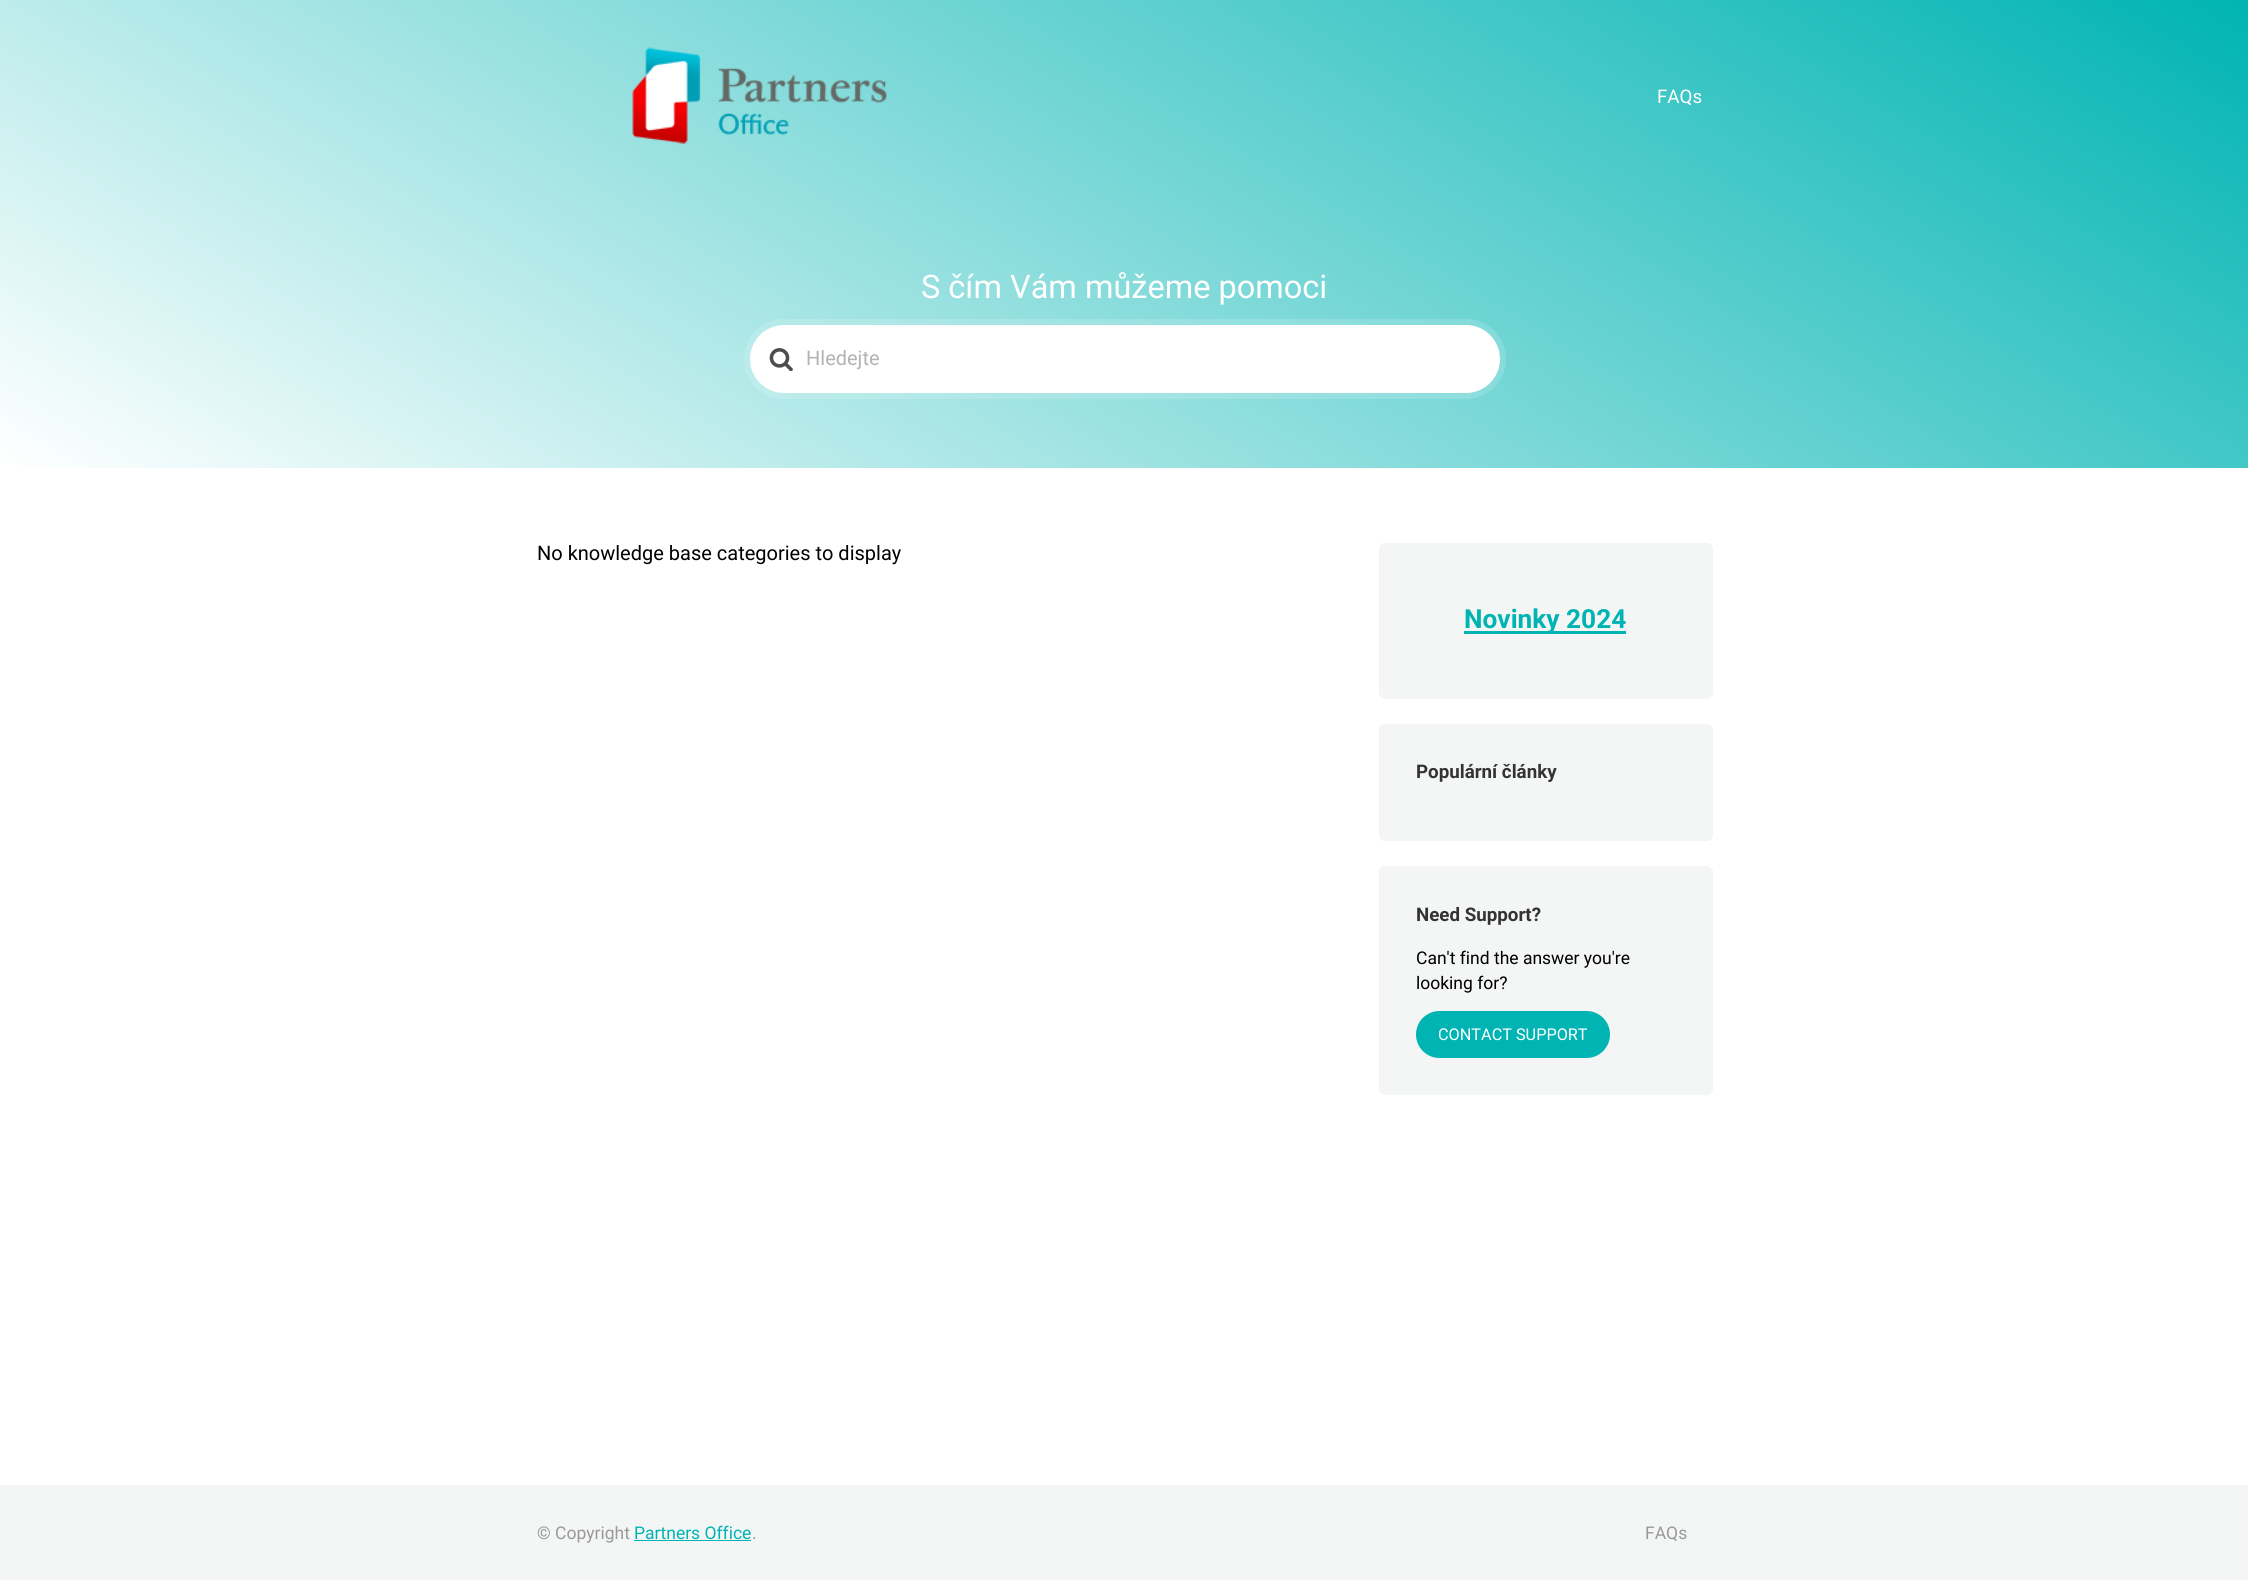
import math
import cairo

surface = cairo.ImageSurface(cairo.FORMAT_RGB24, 2248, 1580)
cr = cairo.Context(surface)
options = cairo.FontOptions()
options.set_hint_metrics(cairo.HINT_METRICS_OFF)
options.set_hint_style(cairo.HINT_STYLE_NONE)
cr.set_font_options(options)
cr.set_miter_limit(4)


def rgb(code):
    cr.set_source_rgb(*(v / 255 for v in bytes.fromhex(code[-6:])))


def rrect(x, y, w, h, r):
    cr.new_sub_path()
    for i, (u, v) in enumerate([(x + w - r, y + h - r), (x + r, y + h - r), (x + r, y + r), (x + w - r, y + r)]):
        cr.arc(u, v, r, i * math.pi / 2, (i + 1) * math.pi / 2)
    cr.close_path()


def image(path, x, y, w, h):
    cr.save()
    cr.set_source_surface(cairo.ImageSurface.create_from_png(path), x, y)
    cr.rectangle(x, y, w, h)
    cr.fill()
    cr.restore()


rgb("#ffffff")
cr.paint()
gradient = cairo.LinearGradient(723, 902, 1526, -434)
gradient.add_color_stop_rgba(0, 1, 1, 1, 1)
gradient.add_color_stop_rgba(1, 0, 0.706, 0.702, 1)
cr.set_source(gradient)
cr.rectangle(0, 0, 2248, 468)
cr.fill()
image("img/1.png", 632, 47, 255, 97)
rrect(747, 322, 756, 74, 37)
cr.set_source_rgba(1, 1, 1, 0.15)
cr.set_line_width(6)
cr.stroke()
rgb("#ffffff")
rrect(750, 325, 750, 68, 34)
cr.fill()
image("img/2.png", 769, 348, 24, 23)
rgb("#f4f5f5")
rrect(1379, 543, 334, 156, 6)
cr.fill()
rgb("#00b4b3")
cr.rectangle(1464, 631, 162, 3)
cr.fill()
rgb("#f4f5f5")
rrect(1379, 724, 334, 117, 6)
cr.fill()
rrect(1379, 866, 334, 229, 6)
cr.fill()
rgb("#00b4b3")
rrect(1416, 1011, 194, 47, 23.5)
cr.fill()
rgb("#f4f5f5")
cr.rectangle(0, 1485, 2248, 95)
cr.fill()
rgb("#00b4b3")
cr.rectangle(634, 1540, 117, 1)
cr.fill()
cr.select_font_face("Roboto")
cr.set_font_size(18.75)
rgb("#ffffff")
cr.move_to(1657, 103)
cr.show_text("FAQs")
cr.set_font_size(32.5)
cr.move_to(921, 298)
cr.show_text("S čím Vám můžeme pomoci")
cr.set_font_size(20)
rgb("#b3b3b3")
cr.move_to(806, 365)
cr.show_text("Hledejte")
rgb("#000000")
cr.move_to(537, 560)
cr.show_text("No knowledge base categories to display")
cr.select_font_face("Roboto", cairo.FONT_SLANT_NORMAL, cairo.FONT_WEIGHT_BOLD)
cr.set_font_size(26.25)
rgb("#00b4b3")
cr.move_to(1464, 628)
cr.show_text("Novinky 2024")
cr.set_font_size(18.75)
rgb("#333333")
cr.move_to(1416, 778)
cr.show_text("Populární články")
cr.move_to(1416, 921)
cr.show_text("Need Support?")
cr.select_font_face("Roboto")
cr.set_font_size(17.5)
rgb("#000000")
cr.move_to(1416, 964)
cr.show_text("Can't find the answer you're")
cr.move_to(1416, 989)
cr.show_text("looking for?")
cr.set_font_size(16.25)
rgb("#ffffff")
cr.move_to(1438, 1040)
cr.show_text("CONTACT SUPPORT")
cr.set_font_size(17.5)
rgb("#999999")
cr.move_to(537, 1539)
cr.show_text("© Copyright")
rgb("#00b4b3")
cr.move_to(634, 1539)
cr.show_text("Partners Office")
rgb("#999999")
cr.move_to(752, 1539)
cr.show_text(".")
cr.move_to(1645, 1539)
cr.show_text("FAQs")
surface.write_to_png("page.png")
